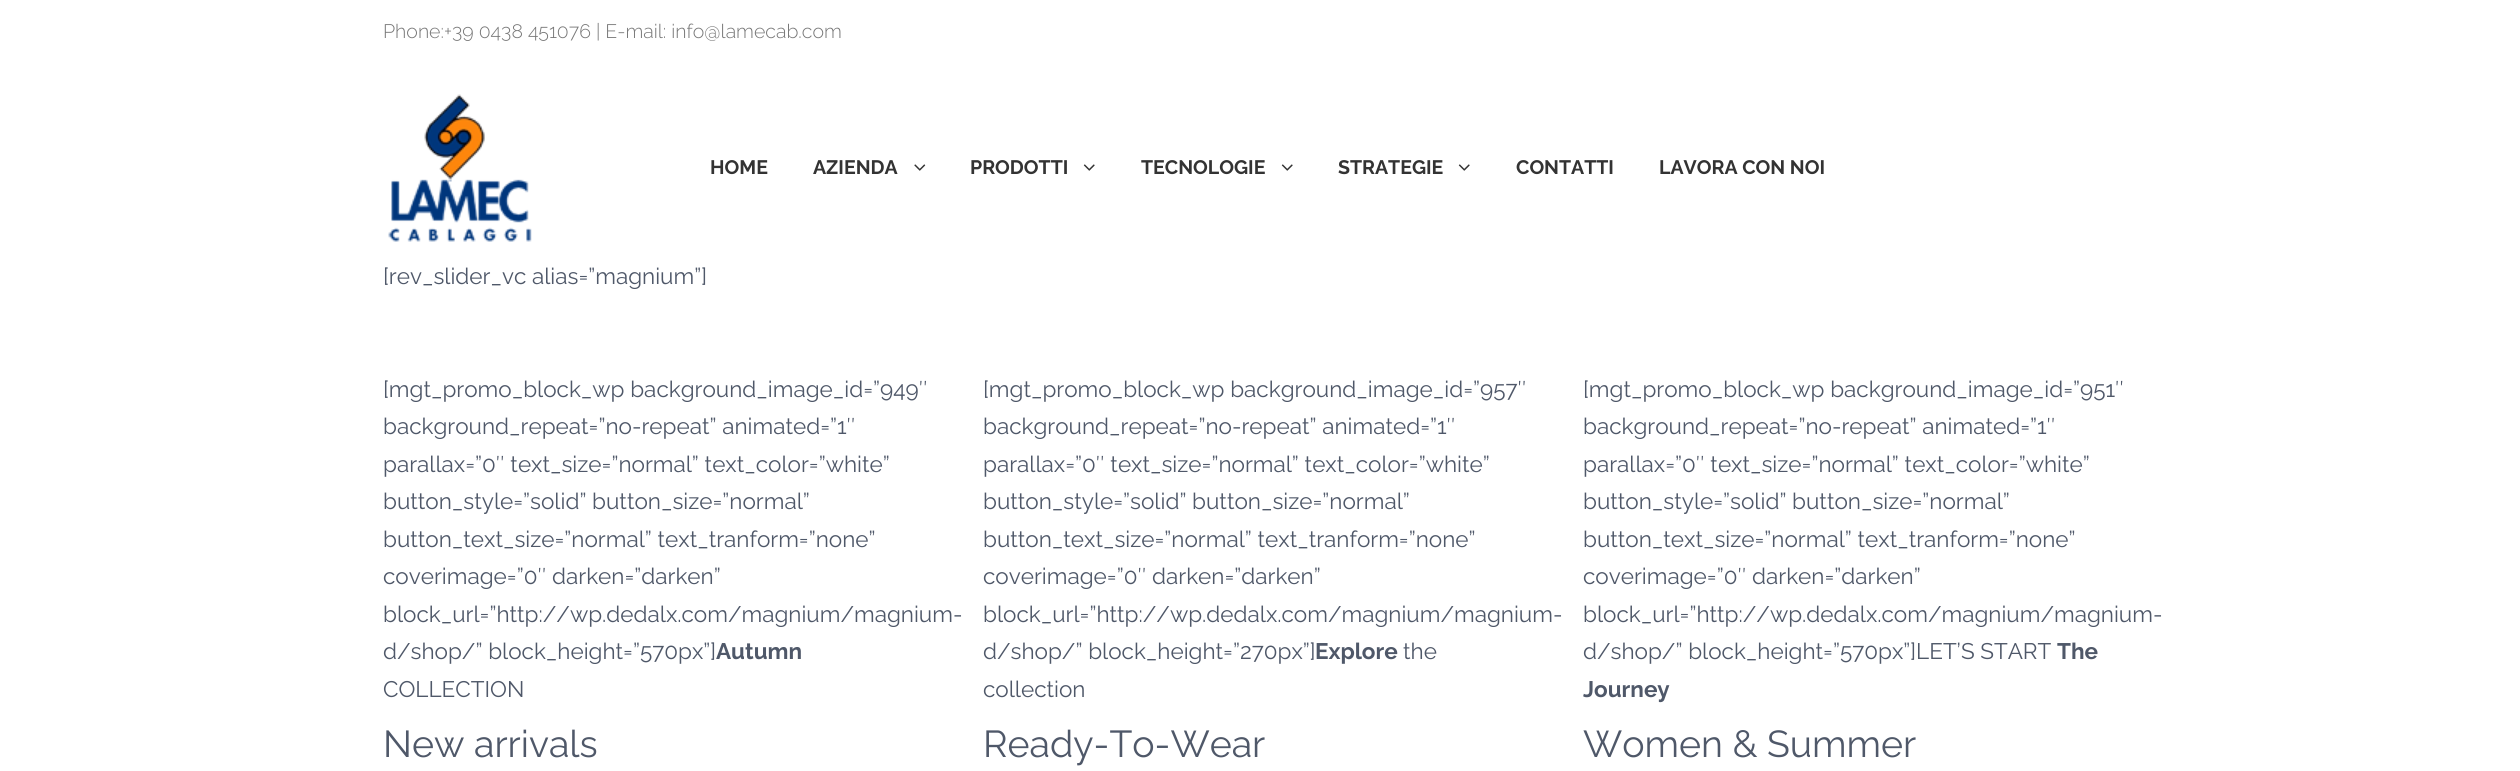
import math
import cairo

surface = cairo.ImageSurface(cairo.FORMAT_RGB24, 2520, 771)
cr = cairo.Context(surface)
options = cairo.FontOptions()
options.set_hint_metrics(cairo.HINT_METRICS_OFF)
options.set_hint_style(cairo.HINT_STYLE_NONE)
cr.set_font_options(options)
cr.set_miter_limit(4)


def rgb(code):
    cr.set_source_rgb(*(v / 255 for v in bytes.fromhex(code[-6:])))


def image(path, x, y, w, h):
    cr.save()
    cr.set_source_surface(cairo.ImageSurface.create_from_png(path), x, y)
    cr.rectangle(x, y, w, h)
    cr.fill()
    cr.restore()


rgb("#ffffff")
cr.paint()
image("img/1.png", 388, 94, 144, 148)
image("img/2.png", 914, 164, 12, 7)
image("img/3.png", 1083, 164, 12, 7)
image("img/3.png", 1281, 164, 12, 7)
image("img/3.png", 1458, 164, 12, 7)
cr.select_font_face("Raleway Light")
cr.set_font_size(19.5)
rgb("#777777")
cr.move_to(383, 38)
cr.show_text("Phone:+39 0438 451076 | E-mail: info@lamecab.com")
cr.select_font_face("Raleway", cairo.FONT_SLANT_NORMAL, cairo.FONT_WEIGHT_BOLD)
rgb("#333333")
for x, y, s in [
    (710, 174, "HOME"),
    (813, 174, "AZIENDA"),
    (970, 174, "PRODOTTI"),
    (1141, 174, "TECNOLOGIE"),
    (1338, 174, "STRATEGIE"),
    (1516, 174, "CONTATTI"),
    (1659, 174, "LAVORA CON NOI"),
]:
    cr.move_to(x, y)
    cr.show_text(s)
cr.select_font_face("Raleway")
cr.set_font_size(22.5)
rgb("#4f5869")
for x, y, s in [
    (383, 284, "[rev_slider_vc alias=”magnium”]"),
    (383, 397, "[mgt_promo_block_wp background_image_id=”949″"),
    (383, 434, "background_repeat=”no-repeat” animated=”1″"),
    (383, 472, "parallax=”0″ text_size=”normal” text_color=”white”"),
    (383, 509, "button_style=”solid” button_size=”normal”"),
    (383, 547, "button_text_size=”normal” text_tranform=”none”"),
    (383, 584, "coverimage=”0″ darken=”darken”"),
    (383, 622, "block_url=”http://wp.dedalx.com/magnium/magnium-"),
    (383, 659, "d/shop/” block_height=”570px”]"),
]:
    cr.move_to(x, y)
    cr.show_text(s)
cr.select_font_face("Raleway", cairo.FONT_SLANT_NORMAL, cairo.FONT_WEIGHT_BOLD)
cr.move_to(716, 659)
cr.show_text("Autumn")
cr.select_font_face("Raleway")
cr.move_to(383, 697)
cr.show_text("COLLECTION")
cr.set_font_size(37.5)
cr.move_to(383, 757)
cr.show_text("New arrivals")
cr.set_font_size(22.5)
for x, y, s in [
    (983, 397, "[mgt_promo_block_wp background_image_id=”957″"),
    (983, 434, "background_repeat=”no-repeat” animated=”1″"),
    (983, 472, "parallax=”0″ text_size=”normal” text_color=”white”"),
    (983, 509, "button_style=”solid” button_size=”normal”"),
    (983, 547, "button_text_size=”normal” text_tranform=”none”"),
    (983, 584, "coverimage=”0″ darken=”darken”"),
    (983, 622, "block_url=”http://wp.dedalx.com/magnium/magnium-"),
    (983, 659, "d/shop/” block_height=”270px”]"),
]:
    cr.move_to(x, y)
    cr.show_text(s)
cr.select_font_face("Raleway", cairo.FONT_SLANT_NORMAL, cairo.FONT_WEIGHT_BOLD)
cr.move_to(1315, 659)
cr.show_text("Explore")
cr.select_font_face("Raleway")
cr.move_to(1403, 659)
cr.show_text("the")
cr.move_to(983, 697)
cr.show_text("collection")
cr.set_font_size(37.5)
cr.move_to(983, 757)
cr.show_text("Ready-To-Wear")
cr.set_font_size(22.5)
for x, y, s in [
    (1583, 397, "[mgt_promo_block_wp background_image_id=”951″"),
    (1583, 434, "background_repeat=”no-repeat” animated=”1″"),
    (1583, 472, "parallax=”0″ text_size=”normal” text_color=”white”"),
    (1583, 509, "button_style=”solid” button_size=”normal”"),
    (1583, 547, "button_text_size=”normal” text_tranform=”none”"),
    (1583, 584, "coverimage=”0″ darken=”darken”"),
    (1583, 622, "block_url=”http://wp.dedalx.com/magnium/magnium-"),
    (1583, 659, "d/shop/” block_height=”570px”]LET’S START"),
]:
    cr.move_to(x, y)
    cr.show_text(s)
cr.select_font_face("Raleway", cairo.FONT_SLANT_NORMAL, cairo.FONT_WEIGHT_BOLD)
cr.move_to(2057, 659)
cr.show_text("The")
cr.move_to(1583, 697)
cr.show_text("Journey")
cr.select_font_face("Raleway")
cr.set_font_size(37.5)
cr.move_to(1583, 757)
cr.show_text("Women & Summer")
surface.write_to_png("page.png")
